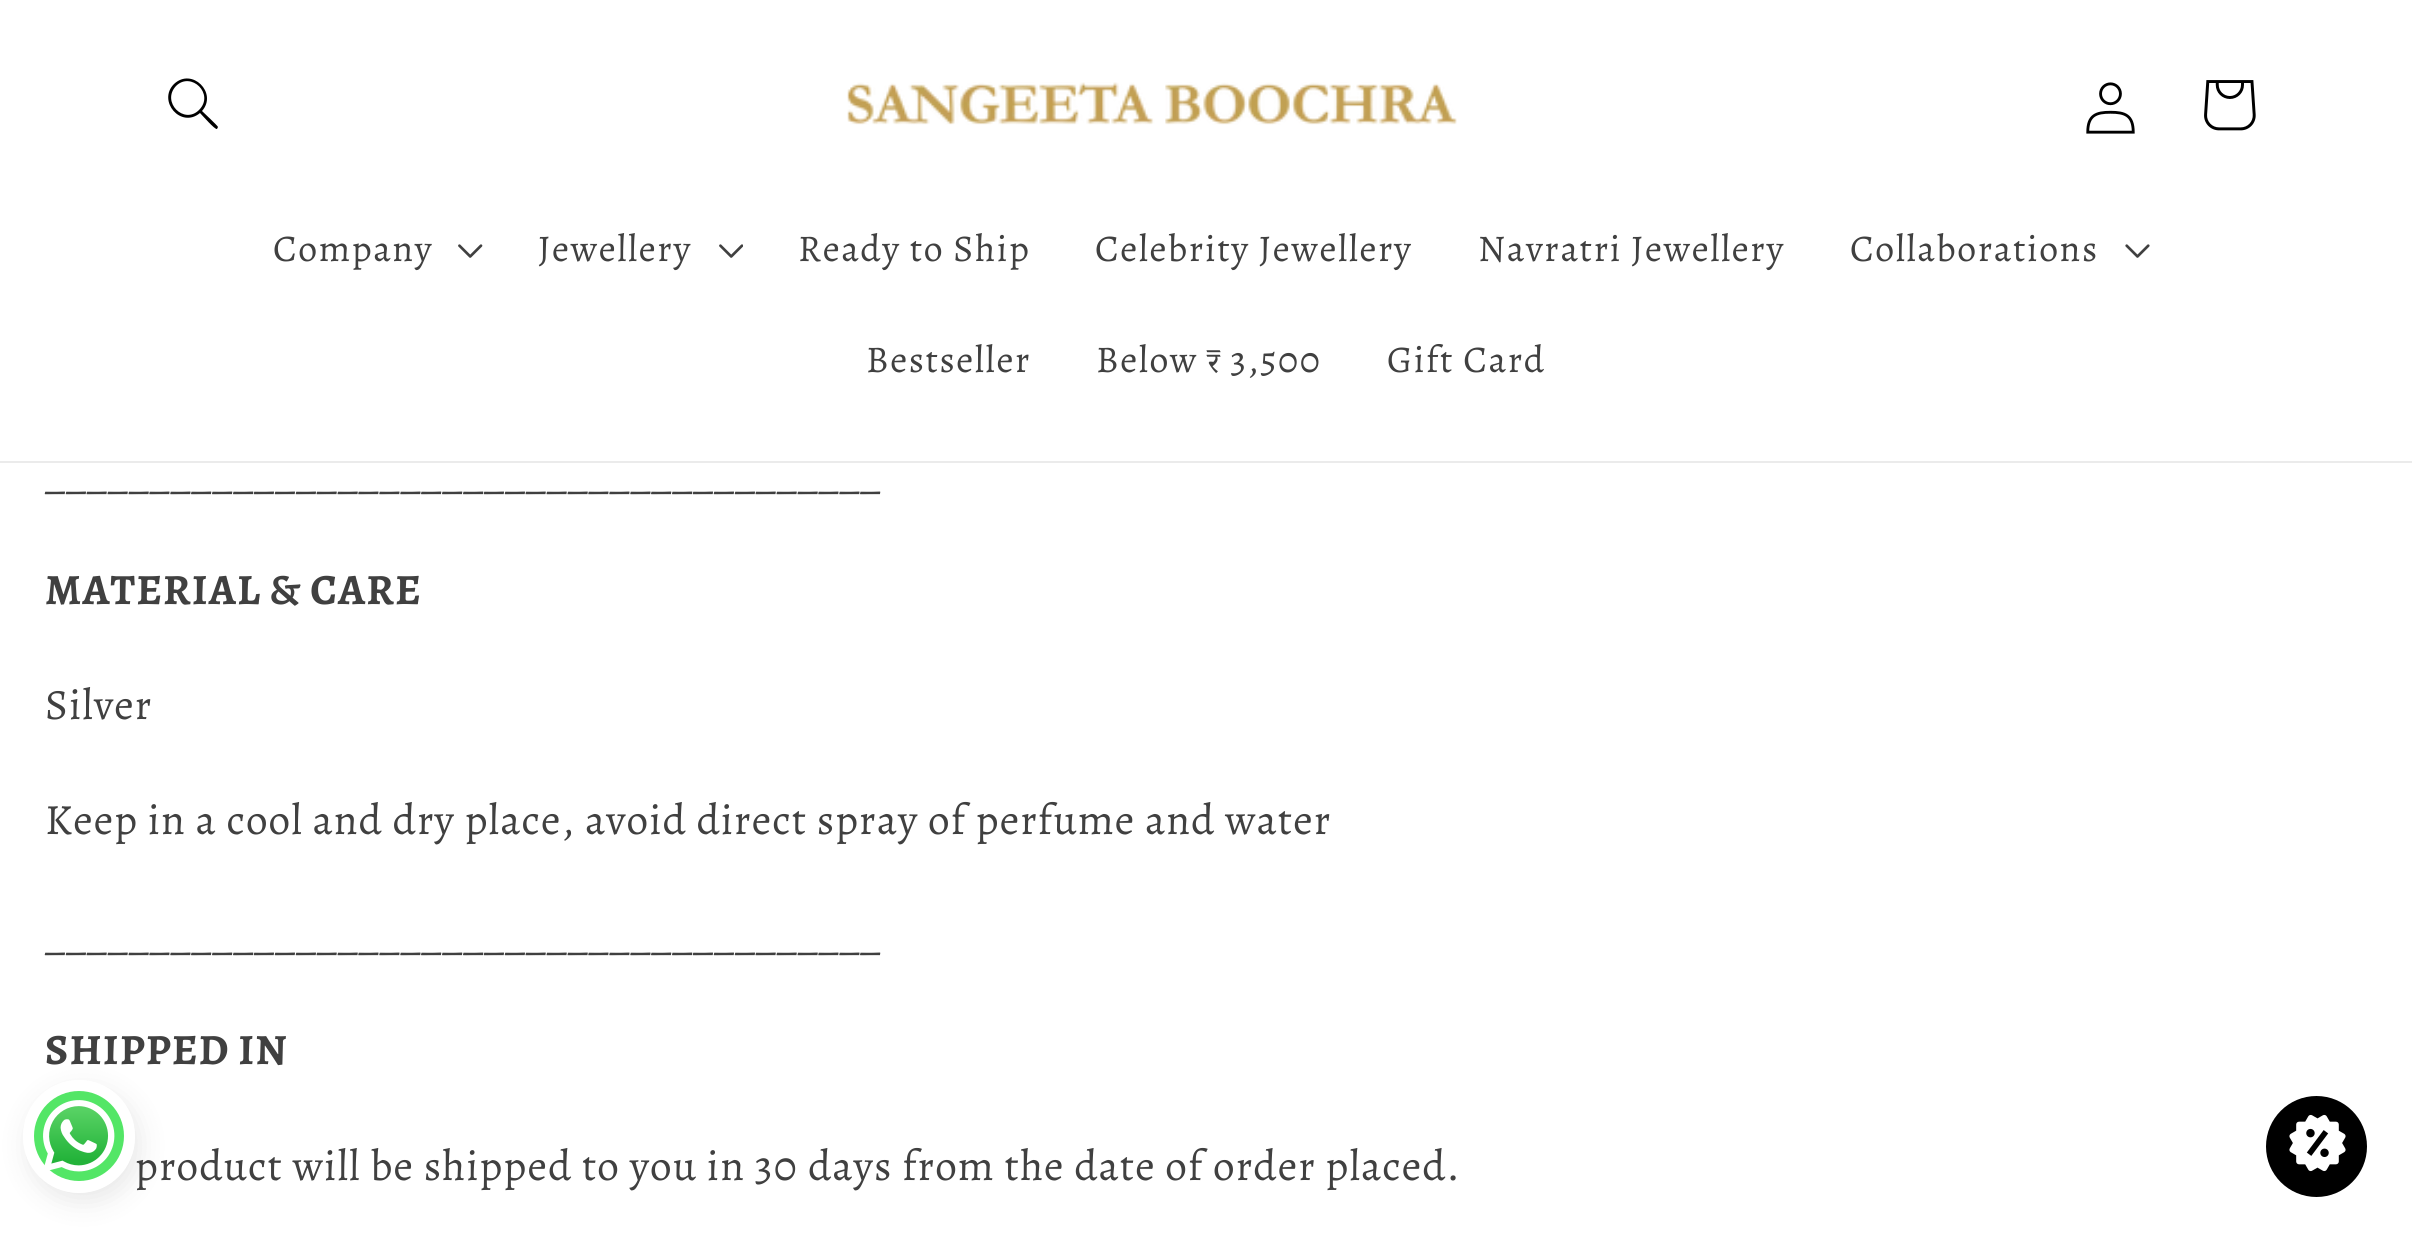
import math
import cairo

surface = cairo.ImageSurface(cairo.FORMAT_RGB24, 2412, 1242)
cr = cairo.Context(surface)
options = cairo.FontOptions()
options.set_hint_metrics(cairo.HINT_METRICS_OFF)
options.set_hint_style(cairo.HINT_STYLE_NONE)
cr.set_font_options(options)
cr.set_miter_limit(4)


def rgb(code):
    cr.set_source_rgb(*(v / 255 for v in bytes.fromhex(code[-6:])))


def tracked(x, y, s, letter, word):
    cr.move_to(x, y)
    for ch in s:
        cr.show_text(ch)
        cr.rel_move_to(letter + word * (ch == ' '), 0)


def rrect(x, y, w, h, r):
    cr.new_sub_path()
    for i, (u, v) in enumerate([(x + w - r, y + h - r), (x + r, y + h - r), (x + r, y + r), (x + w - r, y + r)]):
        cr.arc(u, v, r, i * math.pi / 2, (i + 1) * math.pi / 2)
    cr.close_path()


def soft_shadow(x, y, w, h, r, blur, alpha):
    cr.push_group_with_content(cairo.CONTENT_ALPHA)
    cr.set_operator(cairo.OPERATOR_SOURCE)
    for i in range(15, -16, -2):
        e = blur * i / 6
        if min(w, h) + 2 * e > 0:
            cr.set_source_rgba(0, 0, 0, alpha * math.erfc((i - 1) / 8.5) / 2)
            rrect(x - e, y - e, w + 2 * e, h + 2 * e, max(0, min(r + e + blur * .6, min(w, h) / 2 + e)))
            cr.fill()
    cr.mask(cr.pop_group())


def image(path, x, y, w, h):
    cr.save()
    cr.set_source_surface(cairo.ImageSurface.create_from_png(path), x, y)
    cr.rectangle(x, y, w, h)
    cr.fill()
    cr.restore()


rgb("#ffffff")
cr.paint()
rgb("#ebebeb")
cr.rectangle(0, 461, 2412, 2)
cr.fill()
rgb("#000000")
cr.set_fill_rule(cairo.FILL_RULE_EVEN_ODD)
cr.new_path()
cr.move_to(199, 110)
cr.curve_to(184, 125, 161, 102, 176, 86)
cr.curve_to(191, 71, 215, 94, 199, 110)
cr.close_path()
cr.move_to(200, 113)
cr.curve_to(181, 129, 157, 101, 174, 84)
cr.curve_to(192, 67, 218, 93, 202, 111)
cr.curve_to(204, 113, 218, 126, 218, 127)
cr.line_to(217, 129)
cr.curve_to(215, 130, 202, 115, 200, 113)
cr.close_path()
cr.fill()
image("img/1.png", 847, 82, 610, 43)
image("img/2.png", 2086, 82, 49, 52)
image("img/3.png", 2204, 80, 52, 51)
image("img/4.png", 458, 244, 25, 14)
image("img/5.png", 719, 244, 24, 14)
image("img/6.png", 2125, 244, 25, 14)
cr.save()
cr.new_path()
cr.move_to(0, 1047)
cr.line_to(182, 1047)
cr.line_to(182, 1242)
cr.line_to(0, 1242)
cr.close_path()
cr.move_to(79, 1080)
cr.curve_to(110, 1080, 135, 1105, 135, 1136)
cr.line_to(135, 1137)
cr.curve_to(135, 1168, 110, 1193, 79, 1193)
cr.curve_to(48, 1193, 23, 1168, 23, 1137)
cr.line_to(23, 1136)
cr.curve_to(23, 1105, 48, 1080, 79, 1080)
cr.close_path()
cr.clip()
rgb("#000000")
soft_shadow(27, 1089, 113, 113, 56.5, 13.5, 0.09)
cr.restore()
rgb("#53e666")
cr.arc(79, 1136, 45, 0, 2 * math.pi)
cr.fill()
image("img/7.png", 43, 1100, 72, 72)
rgb("#000000")
cr.arc(2316.5, 1146.5, 50.5, 0, 2 * math.pi)
cr.fill()
image("img/8.png", 2289, 1114, 57, 58)
cr.select_font_face("Alegreya")
cr.set_font_size(37.75)
rgb("#404040")
for x, y, s in [
    (273, 261, "Company"),
    (538, 261, "Jewellery"),
    (798, 261, "Ready to Ship"),
    (1095, 261, "Celebrity Jewellery"),
    (1478, 261, "Navratri Jewellery"),
    (1850, 261, "Collaborations"),
    (866, 372, "Bestseller"),
    (1096, 372, "Below ₹ 3,500"),
    (1387, 372, "Gift Card"),
]:
    tracked(x, y, s, 1.6, 0)
cr.set_font_size(43.2)
tracked(45, 488, "________________________________________", 1.12, 0)
cr.select_font_face("Alegreya", cairo.FONT_SLANT_NORMAL, cairo.FONT_WEIGHT_BOLD)
tracked(45, 604, "MATERIAL & CARE", 1.12, 0)
cr.select_font_face("Alegreya")
for x, y, s in [
    (45, 719, "Silver"),
    (45, 834, "Keep in a cool and dry place, avoid direct spray of perfume and water"),
    (45, 949, "________________________________________"),
]:
    tracked(x, y, s, 1.12, 0)
cr.select_font_face("Alegreya", cairo.FONT_SLANT_NORMAL, cairo.FONT_WEIGHT_BOLD)
tracked(45, 1064, "SHIPPED IN", 1.12, 0)
cr.select_font_face("Alegreya")
tracked(135, 1180, "product will be shipped to you in 30", 1.12, 0)
tracked(808, 1180, "days from the date of order placed.", 1.12, 0)
surface.write_to_png("page.png")
